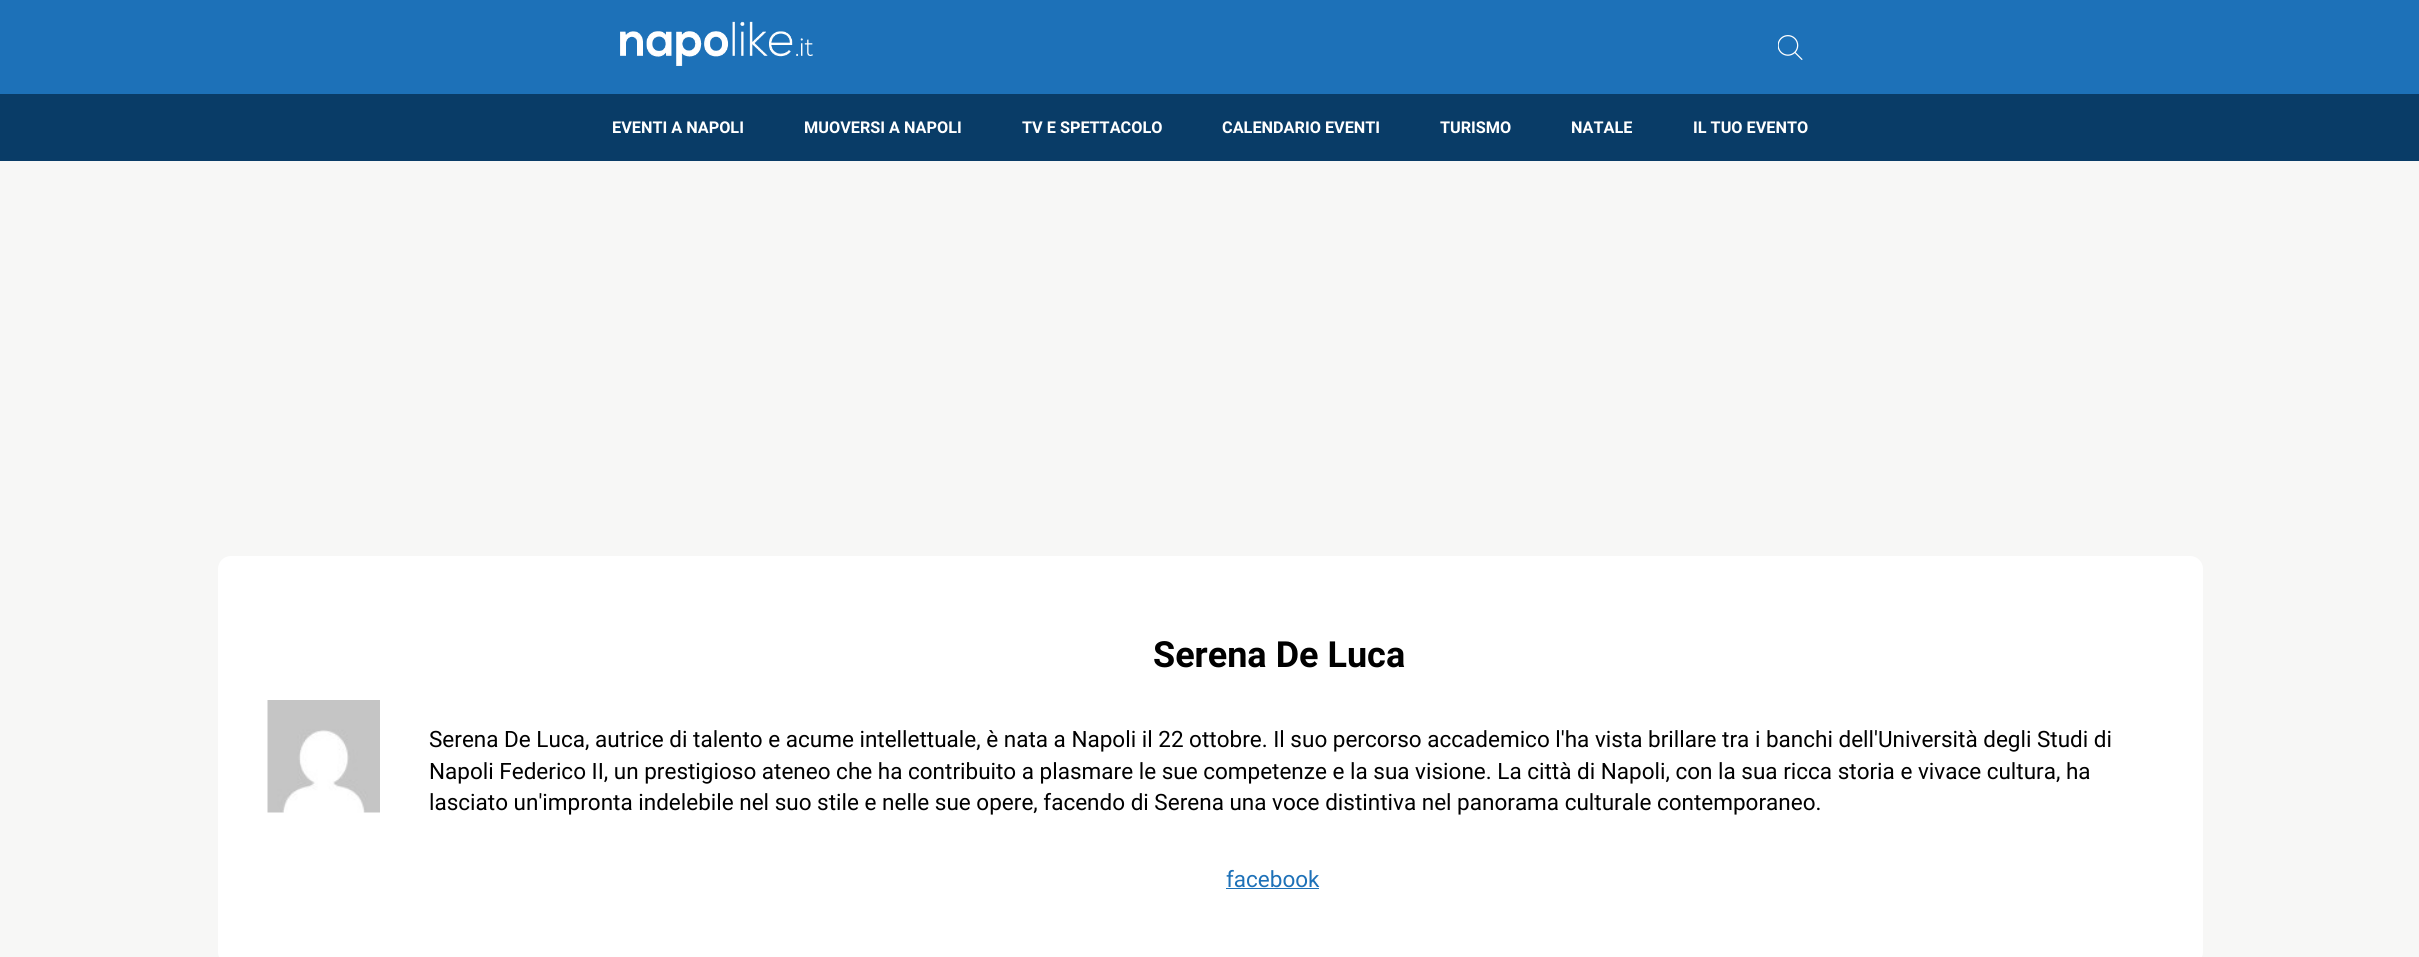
import math
import cairo

surface = cairo.ImageSurface(cairo.FORMAT_RGB24, 2419, 957)
cr = cairo.Context(surface)
options = cairo.FontOptions()
options.set_hint_metrics(cairo.HINT_METRICS_OFF)
options.set_hint_style(cairo.HINT_STYLE_NONE)
cr.set_font_options(options)
cr.set_miter_limit(4)


def rgb(code):
    cr.set_source_rgb(*(v / 255 for v in bytes.fromhex(code[-6:])))


def rrect(x, y, w, h, r):
    cr.new_sub_path()
    for i, (u, v) in enumerate([(x + w - r, y + h - r), (x + r, y + h - r), (x + r, y + r), (x + w - r, y + r)]):
        cr.arc(u, v, r, i * math.pi / 2, (i + 1) * math.pi / 2)
    cr.close_path()


def image(path, x, y, w, h):
    cr.save()
    cr.set_source_surface(cairo.ImageSurface.create_from_png(path), x, y)
    cr.rectangle(x, y, w, h)
    cr.fill()
    cr.restore()


rgb("#f7f7f6")
cr.paint()
rgb("#1d71b8")
cr.rectangle(0, 0, 2419, 94)
cr.fill()
image("img/1.png", 620, 21, 193, 45)
image("img/2.png", 1778, 35, 25, 25)
rgb("#093c67")
cr.rectangle(0, 94, 2419, 67)
cr.fill()
rgb("#ffffff")
rrect(218, 556, 1985, 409, 13)
cr.fill()
image("img/3.png", 267, 700, 113, 113)
rgb("#1d71b8")
cr.rectangle(1226, 888, 93, 1)
cr.fill()
cr.select_font_face("Roboto", cairo.FONT_SLANT_NORMAL, cairo.FONT_WEIGHT_BOLD)
cr.set_font_size(16.25)
rgb("#ffffff")
for x, y, s in [
    (612, 133, "EVENTI A NAPOLI"),
    (804, 133, "MUOVERSI A NAPOLI"),
    (1022, 133, "TV E SPETTACOLO"),
    (1222, 133, "CALENDARIO EVENTI"),
    (1440, 133, "TURISMO"),
    (1571, 133, "NATALE"),
    (1693, 133, "IL TUO EVENTO"),
]:
    cr.move_to(x, y)
    cr.show_text(s)
cr.set_font_size(36)
rgb("#000000")
cr.move_to(1153, 667)
cr.show_text("Serena De Luca")
cr.select_font_face("Roboto")
cr.set_font_size(22.5)
for x, y, s in [
    (429, 747, "Serena De Luca, autrice di talento e acume intellettuale, è nata a Napoli il 22 ottobre. Il suo percorso accademico l'ha vista brillare tra i banchi dell'Università degli Studi di"),
    (429, 779, "Napoli Federico II, un prestigioso ateneo che ha contribuito a plasmare le sue competenze e la sua visione. La città di Napoli, con la sua ricca storia e vivace cultura, ha"),
    (429, 810, "lasciato un'impronta indelebile nel suo stile e nelle sue opere, facendo di Serena una voce distintiva nel panorama culturale contemporaneo."),
]:
    cr.move_to(x, y)
    cr.show_text(s)
rgb("#1d71b8")
cr.move_to(1226, 887)
cr.show_text("facebook")
surface.write_to_png("page.png")
